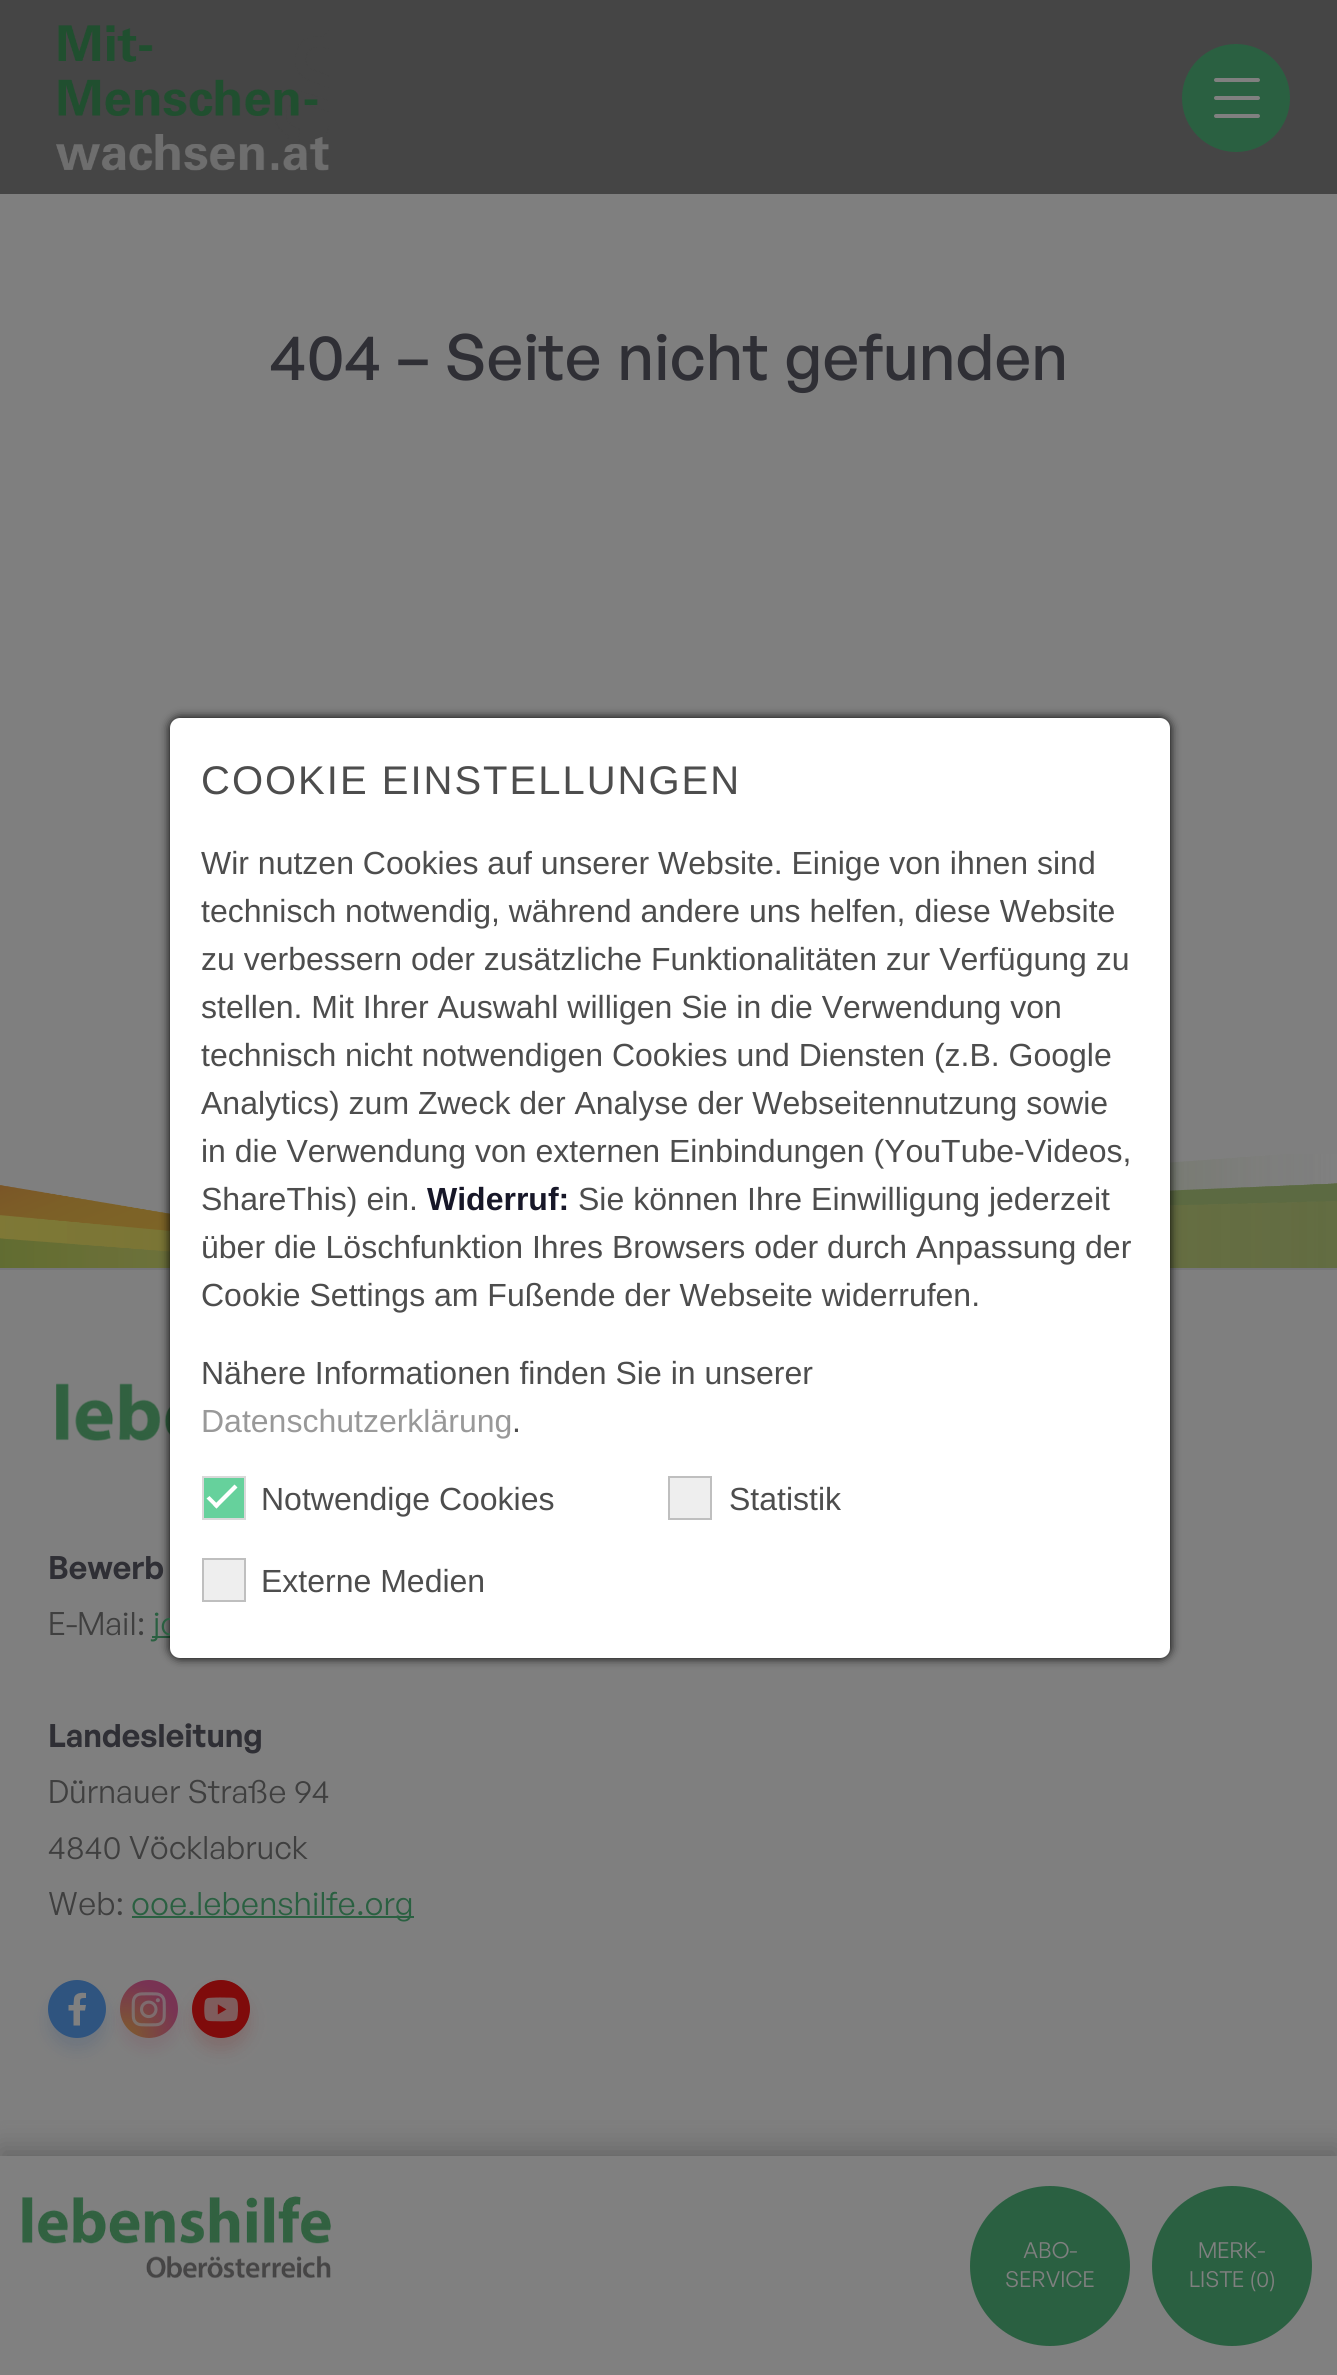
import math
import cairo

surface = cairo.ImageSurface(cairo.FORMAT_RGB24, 1337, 2375)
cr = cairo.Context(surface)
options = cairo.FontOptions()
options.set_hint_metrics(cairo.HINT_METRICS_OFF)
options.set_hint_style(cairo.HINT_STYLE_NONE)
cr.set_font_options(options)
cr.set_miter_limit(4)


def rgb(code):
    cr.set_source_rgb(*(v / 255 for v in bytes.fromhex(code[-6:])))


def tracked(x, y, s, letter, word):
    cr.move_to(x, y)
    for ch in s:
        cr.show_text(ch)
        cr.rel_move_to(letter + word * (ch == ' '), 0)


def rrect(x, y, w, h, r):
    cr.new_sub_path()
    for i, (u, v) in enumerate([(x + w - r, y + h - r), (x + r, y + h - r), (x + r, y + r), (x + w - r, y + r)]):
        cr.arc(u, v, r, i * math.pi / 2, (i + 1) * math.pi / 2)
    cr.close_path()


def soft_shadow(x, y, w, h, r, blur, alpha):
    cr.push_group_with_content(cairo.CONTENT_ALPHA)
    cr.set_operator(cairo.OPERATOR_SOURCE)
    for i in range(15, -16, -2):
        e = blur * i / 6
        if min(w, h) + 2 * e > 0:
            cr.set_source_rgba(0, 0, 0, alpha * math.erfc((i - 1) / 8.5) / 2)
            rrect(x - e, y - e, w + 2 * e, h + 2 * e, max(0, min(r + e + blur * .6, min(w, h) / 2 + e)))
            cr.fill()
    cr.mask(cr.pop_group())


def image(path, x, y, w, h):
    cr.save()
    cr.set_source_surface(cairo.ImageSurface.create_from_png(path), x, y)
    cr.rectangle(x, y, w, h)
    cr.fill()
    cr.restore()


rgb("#7f7f7f")
cr.paint()
rgb("#454545")
cr.rectangle(0, 0, 1337, 194)
cr.fill()
image("img/1.png", 56, 25, 273, 146)
rgb("#2a6041")
cr.arc(1236, 98, 54, 0, 2 * math.pi)
cr.fill()
rgb("#808080")
rrect(1214, 78, 46, 4, 2)
cr.fill()
rrect(1214, 96, 46, 4, 2)
cr.fill()
rrect(1214, 114, 46, 4, 2)
cr.fill()
image("img/2.png", 0, 1154, 1337, 114)
rgb("#767679")
cr.rectangle(0, 1268, 1337, 2)
cr.fill()
image("img/3.png", 56, 1383, 114, 58)
rgb("#2a6041")
cr.rectangle(152, 1636, 18, 2)
cr.fill()
cr.rectangle(132, 1916, 282, 2)
cr.fill()
rgb("#2e4f7a")
soft_shadow(48, 1992, 58, 58, 29, 8, 0.21)
rgb("#2f547f")
cr.arc(77, 2009, 29, 0, 2 * math.pi)
cr.fill()
rgb("#808080")
cr.new_path()
cr.move_to(80, 2025.5)
cr.line_to(80, 2010.5)
cr.line_to(85, 2010.5)
cr.line_to(86, 2005)
cr.line_to(80, 2005)
cr.curve_to(80, 1998.5, 79.5, 1998, 86, 1998)
cr.line_to(86, 1993)
cr.curve_to(81.5, 1992.5, 75, 1992.5, 74, 1998.5)
cr.line_to(73.5, 2005)
cr.line_to(68.5, 2005)
cr.line_to(68.5, 2010.5)
cr.line_to(73.5, 2010.5)
cr.line_to(73.5, 2025.5)
cr.close_path()
cr.fill()
cr.save()
cr.set_fill_rule(cairo.FILL_RULE_EVEN_ODD)
cr.new_path()
cr.move_to(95, 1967)
cr.line_to(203, 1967)
cr.line_to(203, 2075)
cr.line_to(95, 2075)
cr.close_path()
cr.move_to(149, 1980)
cr.curve_to(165, 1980, 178, 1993, 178, 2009)
cr.curve_to(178, 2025, 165, 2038, 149, 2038)
cr.curve_to(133, 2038, 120, 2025, 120, 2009)
cr.curve_to(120, 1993, 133, 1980, 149, 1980)
cr.close_path()
cr.clip()
rgb("#7e2c46")
soft_shadow(120, 1992, 58, 58, 29, 8, 0.14)
cr.restore()
image("img/4.png", 120, 1980, 58, 58)
cr.save()
cr.set_fill_rule(cairo.FILL_RULE_EVEN_ODD)
cr.new_path()
cr.move_to(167, 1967)
cr.line_to(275, 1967)
cr.line_to(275, 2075)
cr.line_to(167, 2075)
cr.close_path()
cr.move_to(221, 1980)
cr.curve_to(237, 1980, 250, 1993, 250, 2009)
cr.curve_to(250, 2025, 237, 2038, 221, 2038)
cr.curve_to(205, 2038, 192, 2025, 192, 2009)
cr.curve_to(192, 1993, 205, 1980, 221, 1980)
cr.close_path()
cr.clip()
rgb("#802727")
soft_shadow(192, 1992, 58, 58, 29, 8, 0.21)
cr.restore()
image("img/5.png", 192, 1980, 58, 58)
rgb("#383838")
soft_shadow(0, 2148, 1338, 220, 0, 13, 0.35)
rgb("#808080")
cr.rectangle(0, 2156, 1337, 219)
cr.fill()
image("img/6.png", 22, 2196, 309, 82)
rgb("#2a6041")
cr.arc(1050, 2266, 80, 0, 2 * math.pi)
cr.fill()
cr.arc(1232, 2266, 80, 0, 2 * math.pi)
cr.fill()
rgb("#000000")
soft_shadow(170, 718, 1000, 940, 10, 5, 1)
cr.select_font_face("General Sans Medium")
cr.set_font_size(64)
rgb("#2f2f35")
cr.move_to(270, 380)
cr.show_text("404 – Seite nicht gefunden")
cr.select_font_face("General Sans SemiBold")
cr.set_font_size(32)
cr.move_to(48, 1579)
cr.show_text("Bewerb")
cr.select_font_face("General Sans")
rgb("#3f3f3f")
cr.move_to(48, 1635)
cr.show_text("E-Mail:")
rgb("#2a6041")
cr.move_to(153, 1635)
cr.show_text("jo")
cr.select_font_face("General Sans SemiBold")
rgb("#2f2f35")
cr.move_to(48, 1747)
cr.show_text("Landesleitung")
cr.select_font_face("General Sans")
rgb("#3f3f3f")
for x, y, s in [
    (48, 1803, "Dürnauer Straße 94"),
    (48, 1859, "4840 Vöcklabruck"),
    (48, 1915, "Web:"),
]:
    cr.move_to(x, y)
    cr.show_text(s)
rgb("#2a6041")
cr.move_to(131, 1915)
cr.show_text("ooe.lebenshilfe.org")
cr.set_font_size(22)
rgb("#808080")
for x, y, s in [
    (1023, 2258, "ABO-"),
    (1005, 2287, "SERVICE"),
    (1198, 2258, "MERK-"),
    (1189, 2287, "LISTE (0)"),
]:
    cr.move_to(x, y)
    cr.show_text(s)
rgb("#ffffff")
rrect(170, 718, 1000, 940, 10)
cr.fill()
cr.select_font_face("Liberation Sans")
cr.set_font_size(40)
rgb("#4d4d4d")
tracked(201, 794, "COOKIE EINSTELLUNGEN", 2, 0)
cr.set_font_size(32)
for x, y, s in [
    (201, 874, "Wir nutzen Cookies auf unserer Website. Einige von ihnen sind"),
    (201, 922, "technisch notwendig, während andere uns helfen, diese Website"),
    (201, 970, "zu verbessern oder zusätzliche Funktionalitäten zur Verfügung zu"),
    (201, 1018, "stellen. Mit Ihrer Auswahl willigen Sie in die Verwendung von"),
    (201, 1066, "technisch nicht notwendigen Cookies und Diensten (z.B. Google"),
    (201, 1114, "Analytics) zum Zweck der Analyse der Webseitennutzung sowie"),
    (201, 1162, "in die Verwendung von externen Einbindungen (YouTube-Videos,"),
    (201, 1210, "ShareThis) ein."),
]:
    cr.move_to(x, y)
    cr.show_text(s)
cr.select_font_face("Liberation Sans", cairo.FONT_SLANT_NORMAL, cairo.FONT_WEIGHT_BOLD)
rgb("#171728")
cr.move_to(427, 1210)
cr.show_text("Widerruf:")
cr.select_font_face("Liberation Sans")
rgb("#4d4d4d")
for x, y, s in [
    (578, 1210, "Sie können Ihre Einwilligung jederzeit"),
    (201, 1258, "über die Löschfunktion Ihres Browsers oder durch Anpassung der"),
    (201, 1306, "Cookie Settings am Fußende der Webseite widerrufen."),
    (201, 1384, "Nähere Informationen finden Sie in unserer"),
]:
    cr.move_to(x, y)
    cr.show_text(s)
rgb("#999999")
cr.move_to(201, 1432)
cr.show_text("Datenschutzerklärung")
rgb("#4d4d4d")
cr.move_to(512, 1432)
cr.show_text(".")
rgb("#66d19c")
cr.rectangle(203, 1477, 42, 42)
cr.fill_preserve()
rgb("#d9d9d9")
cr.stroke()
rgb("#ffffff")
cr.new_path()
cr.move_to(234.5, 1484.5)
cr.line_to(237.5, 1487.5)
cr.line_to(216.5, 1508.5)
cr.line_to(213.5, 1505.5)
cr.close_path()
cr.fill()
cr.new_path()
cr.move_to(209.5, 1496)
cr.line_to(219, 1505.5)
cr.line_to(216.5, 1508.5)
cr.line_to(206.5, 1498.5)
cr.close_path()
cr.fill()
rgb("#4d4d4d")
cr.move_to(261, 1510)
cr.show_text("Notwendige Cookies")
rgb("#eeeeee")
cr.rectangle(669, 1477, 42, 42)
cr.fill_preserve()
rgb("#bfbfbf")
cr.stroke()
rgb("#4d4d4d")
cr.move_to(729, 1510)
cr.show_text("Statistik")
rgb("#eeeeee")
cr.rectangle(203, 1559, 42, 42)
cr.fill_preserve()
rgb("#bfbfbf")
cr.stroke()
rgb("#4d4d4d")
cr.move_to(261, 1592)
cr.show_text("Externe Medien")
surface.write_to_png("page.png")
